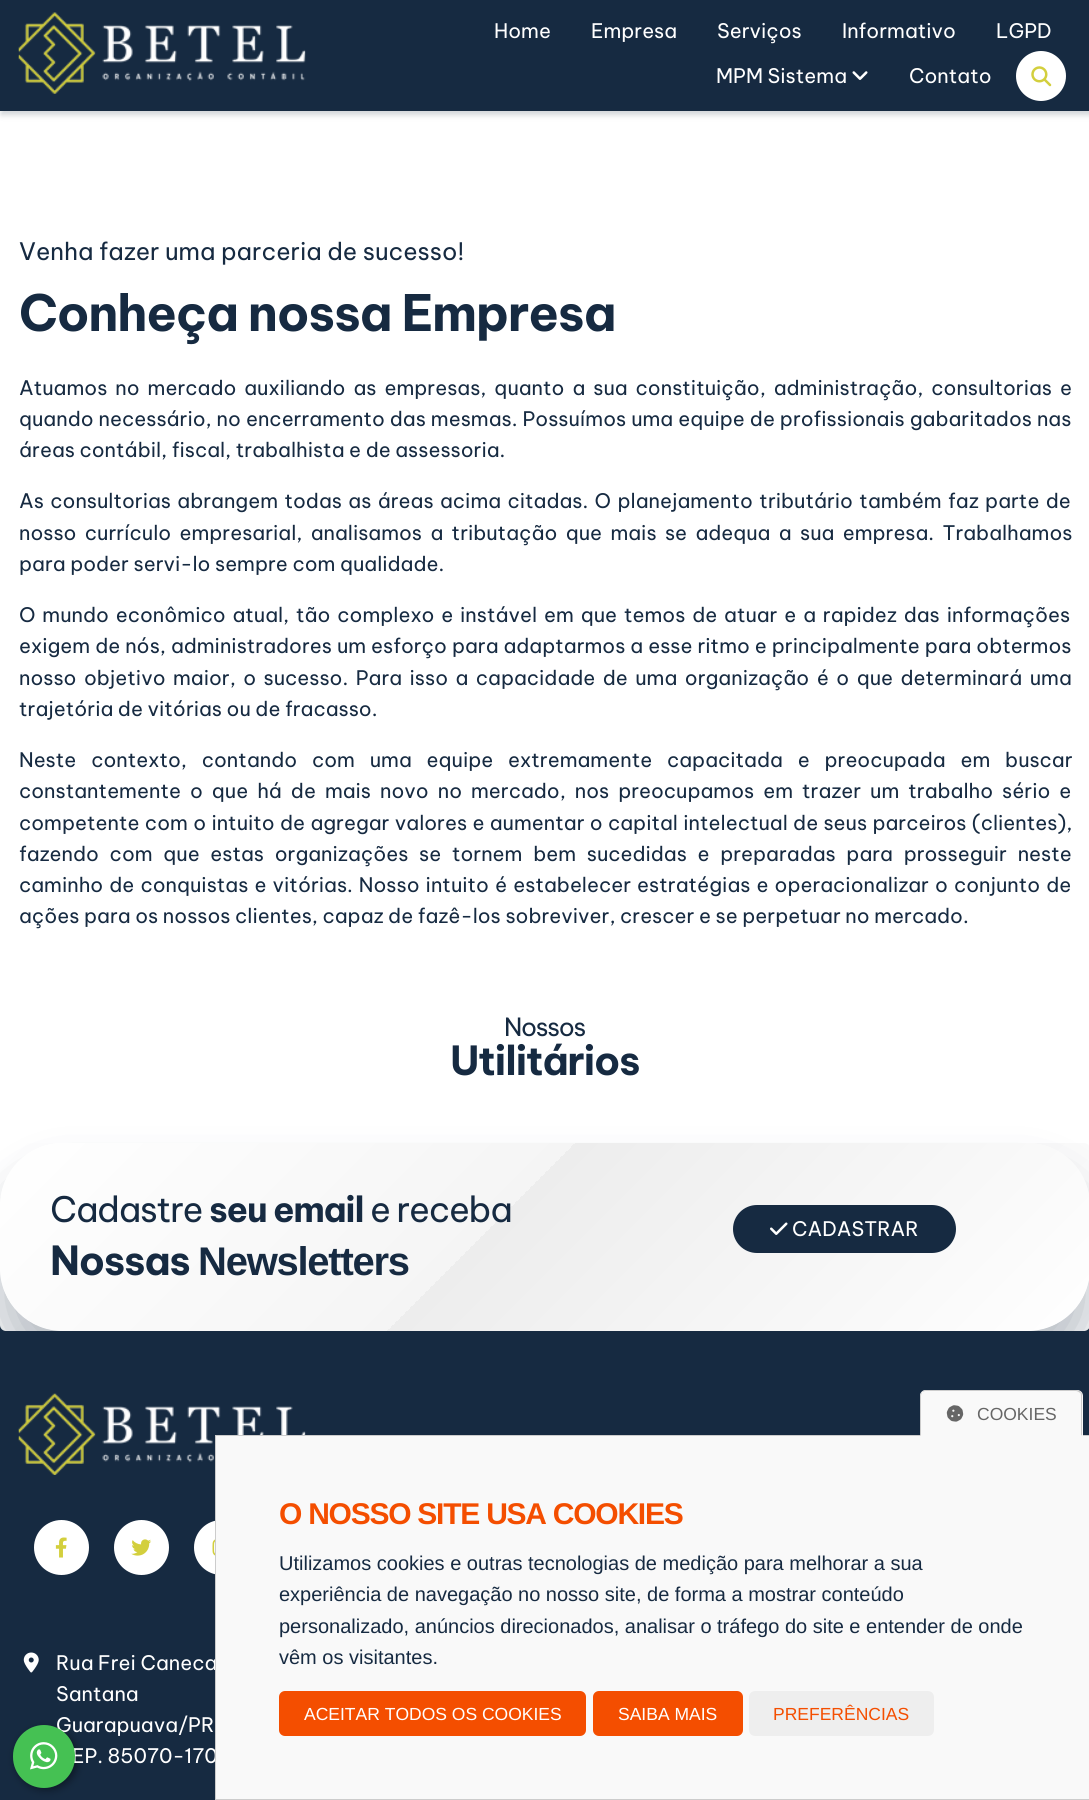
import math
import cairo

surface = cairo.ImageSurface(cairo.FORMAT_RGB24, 1089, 1800)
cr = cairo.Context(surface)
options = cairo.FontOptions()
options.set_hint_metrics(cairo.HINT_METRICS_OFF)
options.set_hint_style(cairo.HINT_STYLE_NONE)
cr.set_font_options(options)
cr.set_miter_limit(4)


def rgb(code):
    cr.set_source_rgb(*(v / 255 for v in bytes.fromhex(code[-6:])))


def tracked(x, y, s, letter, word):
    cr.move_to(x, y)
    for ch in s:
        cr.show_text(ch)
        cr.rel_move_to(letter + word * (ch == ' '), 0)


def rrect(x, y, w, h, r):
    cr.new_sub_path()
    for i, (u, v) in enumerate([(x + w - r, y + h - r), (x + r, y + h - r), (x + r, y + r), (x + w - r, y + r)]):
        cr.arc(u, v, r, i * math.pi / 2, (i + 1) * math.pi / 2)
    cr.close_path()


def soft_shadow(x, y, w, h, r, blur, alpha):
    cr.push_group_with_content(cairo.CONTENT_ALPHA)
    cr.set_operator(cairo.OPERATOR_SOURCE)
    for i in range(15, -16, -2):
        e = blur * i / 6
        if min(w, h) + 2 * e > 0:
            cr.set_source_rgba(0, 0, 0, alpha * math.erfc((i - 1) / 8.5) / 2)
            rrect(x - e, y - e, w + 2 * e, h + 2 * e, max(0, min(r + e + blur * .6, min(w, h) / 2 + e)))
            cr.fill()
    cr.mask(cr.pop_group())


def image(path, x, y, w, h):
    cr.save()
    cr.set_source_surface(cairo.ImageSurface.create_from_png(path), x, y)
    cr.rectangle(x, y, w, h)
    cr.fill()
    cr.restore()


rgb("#ffffff")
cr.paint()
rgb("#162a41")
soft_shadow(1, 4, 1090, 111, 0, 3, 0.2)
rgb("#162a41")
cr.rectangle(0, 0, 1089, 111)
cr.fill()
image("img/1.png", 18, 12, 288, 82)
image("img/2.png", 852, 71, 16, 9)
rgb("#ffffff")
cr.arc(1041, 76, 23.5, 0, 2 * math.pi)
cr.fill_preserve()
cr.set_line_width(3)
cr.stroke()
image("img/3.png", 1031, 66, 21, 21)
rgb("#162a41")
cr.rectangle(0, 1325, 1089, 475)
cr.fill()
gradient = cairo.LinearGradient(225, 917, 865, 1557)
gradient.add_color_stop_rgba(0, 1, 1, 1, 1)
gradient.add_color_stop_rgba(0.45, 0.961, 0.961, 0.961, 1)
gradient.add_color_stop_rgba(0.45, 0.929, 0.929, 0.929, 1)
gradient.add_color_stop_rgba(1, 1, 1, 1, 1)
cr.set_source(gradient)
rrect(0, 1143, 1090, 188, 6)
cr.fill()
image("img/5.png", 18, 1393, 288, 82)
cr.save()
cr.set_fill_rule(cairo.FILL_RULE_EVEN_ODD)
cr.new_path()
cr.move_to(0, 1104)
cr.line_to(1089, 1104)
cr.line_to(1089, 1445)
cr.line_to(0, 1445)
cr.close_path()
cr.move_to(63, 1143)
cr.line_to(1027, 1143)
cr.curve_to(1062, 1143, 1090, 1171, 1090, 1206)
cr.line_to(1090, 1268)
cr.curve_to(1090, 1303, 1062, 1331, 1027, 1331)
cr.line_to(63, 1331)
cr.curve_to(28, 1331, 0, 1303, 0, 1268)
cr.line_to(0, 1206)
cr.curve_to(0, 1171, 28, 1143, 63, 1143)
cr.close_path()
cr.clip()
rgb("#162a41")
soft_shadow(0, 1180, 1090, 189, 63, 25, 0.3)
cr.restore()
rgb("#162a41")
rrect(734.5, 1206.5, 220, 45, 22.5)
cr.fill_preserve()
cr.stroke()
image("img/4.png", 770, 1222, 18, 13)
rgb("#ffffff")
cr.arc(61.5, 1547.5, 26, 0, 2 * math.pi)
cr.fill_preserve()
cr.stroke()
image("img/6.png", 55, 1537, 12, 21)
cr.arc(141.5, 1547.5, 26, 0, 2 * math.pi)
cr.fill_preserve()
cr.stroke()
image("img/7.png", 131, 1539, 21, 17)
cr.arc(221.5, 1547.5, 26, 0, 2 * math.pi)
cr.fill_preserve()
cr.stroke()
image("img/8.png", 212, 1539, 3, 17)
image("img/9.png", 23, 1652, 16, 21)
rgb("#000000")
soft_shadow(15, 1728, 63, 62, 31, 4, 0.4)
cr.select_font_face("Be Vietnam Pro")
cr.set_font_size(20)
rgb("#ffffff")
for x, y, s in [
    (494, 38, "Home"),
    (591, 38, "Empresa"),
    (717, 38, "Serviços"),
    (842, 38, "Informativo"),
    (996, 38, "LGPD"),
    (716, 83, "MPM Sistema"),
    (909, 83, "Contato"),
]:
    cr.move_to(x, y)
    cr.show_text(s)
cr.set_font_size(24)
rgb("#162a41")
cr.move_to(19, 260)
cr.show_text("Venha fazer uma parceria de sucesso!")
cr.select_font_face("Be Vietnam Pro", cairo.FONT_SLANT_NORMAL, cairo.FONT_WEIGHT_BOLD)
cr.set_font_size(50)
tracked(19, 331, "Conheça nossa Empresa", -1.25, 0)
cr.select_font_face("Be Vietnam Pro")
cr.set_font_size(20)
tracked(19, 395, "Atuamos no mercado auxiliando as empresas, quanto a sua constituição, administração, consultorias e", 0, 3.4)
tracked(19, 426, "quando necessário, no encerramento das mesmas. Possuímos uma equipe de profissionais gabaritados nas", 0, 0.4)
cr.move_to(19, 457)
cr.show_text("áreas contábil, fiscal, trabalhista e de assessoria.")
tracked(19, 508, "As consultorias abrangem todas as áreas acima citadas. O planejamento tributário também faz parte de", 0, 1.8)
tracked(19, 540, "nosso currículo empresarial, analisamos a tributação que mais se adequa a sua empresa. Trabalhamos", 0, 3.75)
cr.move_to(19, 571)
cr.show_text("para poder servi-lo sempre com qualidade.")
tracked(19, 622, "O mundo econômico atual, tão complexo e instável em que temos de atuar e a rapidez das informações", 0, 2.25)
tracked(19, 653, "exigem de nós, administradores um esforço para adaptarmos a esse ritmo e principalmente para obtermos", 0, 0.4)
tracked(19, 685, "nosso objetivo maior, o sucesso. Para isso a capacidade de uma organização é o que determinará uma", 0, 2.9)
cr.move_to(19, 716)
cr.show_text("trajetória de vitórias ou de fracasso.")
tracked(19, 767, "Neste contexto, contando com uma equipe extremamente capacitada e preocupada em buscar", 0, 10.25)
tracked(19, 798, "constantemente o que há de mais novo no mercado, nos preocupamos em trazer um trabalho sério e", 0, 4.4)
tracked(19, 830, "competente com o intuito de agregar valores e aumentar o capital intelectual de seus parceiros (clientes),", 0, 0.75)
tracked(19, 861, "fazendo com que estas organizações se tornem bem sucedidas e preparadas para prosseguir neste", 0, 6.1)
tracked(19, 892, "caminho de conquistas e vitórias. Nosso intuito é estabelecer estratégias e operacionalizar o conjunto de", 0, 1.5)
cr.move_to(19, 923)
cr.show_text("ações para os nossos clientes, capaz de fazê-los sobreviver, crescer e se perpetuar no mercado.")
cr.set_font_size(25)
tracked(504, 1036, "Nossos", -1.25, 0)
cr.select_font_face("Be Vietnam Pro", cairo.FONT_SLANT_NORMAL, cairo.FONT_WEIGHT_BOLD)
cr.set_font_size(40)
tracked(450, 1075, "Utilitários", -1.25, 0)
cr.select_font_face("Be Vietnam Pro")
cr.set_font_size(35)
tracked(50, 1222, "Cadastre", -1.25, 0)
cr.select_font_face("Be Vietnam Pro", cairo.FONT_SLANT_NORMAL, cairo.FONT_WEIGHT_BOLD)
tracked(209, 1222, "seu email", -1.25, 0)
cr.select_font_face("Be Vietnam Pro")
tracked(370, 1222, "e receba", -1.25, 0)
cr.select_font_face("Be Vietnam Pro", cairo.FONT_SLANT_NORMAL, cairo.FONT_WEIGHT_BOLD)
cr.set_font_size(40)
tracked(50, 1275, "Nossas", -1.25, 0)
cr.select_font_face("Liberation Sans", cairo.FONT_SLANT_NORMAL, cairo.FONT_WEIGHT_BOLD)
tracked(198, 1275, "Newsletters", -1.25, 0)
cr.select_font_face("Be Vietnam Pro")
cr.set_font_size(20)
rgb("#ffffff")
for x, y, s in [
    (792, 1236, "CADASTRAR"),
    (56, 1670, "Rua Frei Caneca"),
    (56, 1701, "Santana"),
    (56, 1732, "Guarapuava/PR"),
    (72, 1763, "EP. 85070-170"),
]:
    cr.move_to(x, y)
    cr.show_text(s)
rgb("#f9f9f9")
cr.rectangle(215.5, 1435.5, 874, 364)
cr.fill_preserve()
rgb("#cccccc")
cr.set_line_width(1)
cr.stroke()
rgb("#f9f9f9")
cr.new_path()
cr.move_to(926, 1390)
cr.line_to(1077, 1390)
cr.curve_to(1080.5, 1390, 1083, 1392.5, 1083, 1396)
cr.line_to(1083, 1436)
cr.line_to(920, 1436)
cr.line_to(920, 1396)
cr.curve_to(920, 1392.5, 922.5, 1390, 926, 1390)
cr.close_path()
cr.fill()
rgb("#cccccc")
cr.new_path()
cr.move_to(926, 1390)
cr.curve_to(924, 1390, 923, 1391, 922, 1392)
cr.line_to(925, 1391)
cr.line_to(1076, 1391)
cr.curve_to(1077, 1391, 1079, 1392, 1080, 1393)
cr.line_to(1081, 1392)
cr.curve_to(1080, 1391, 1078, 1390, 1076, 1390)
cr.close_path()
cr.fill()
cr.new_path()
cr.move_to(1081, 1392)
cr.curve_to(1082, 1393, 1082, 1395, 1082, 1396)
cr.line_to(1082, 1436)
cr.line_to(1081, 1435)
cr.line_to(1081, 1396)
cr.curve_to(1081, 1395, 1081, 1393, 1080, 1393)
cr.close_path()
cr.fill()
rgb("#f9f9f9")
cr.new_path()
cr.move_to(1082, 1436)
cr.line_to(920, 1436)
cr.line_to(921, 1435)
cr.line_to(1081, 1435)
cr.close_path()
cr.fill()
rgb("#cccccc")
cr.new_path()
cr.move_to(920, 1396)
cr.line_to(920, 1436)
cr.line_to(921, 1435)
cr.line_to(921, 1396)
cr.curve_to(921, 1394, 922, 1393, 922, 1392)
cr.curve_to(921, 1393, 920, 1394, 920, 1396)
cr.close_path()
cr.fill()
image("img/10.png", 946, 1405, 18, 17)
cr.select_font_face("Liberation Sans")
cr.set_font_size(17.5)
rgb("#666666")
cr.move_to(977, 1420)
cr.show_text("COOKIES")
cr.select_font_face("Liberation Sans", cairo.FONT_SLANT_NORMAL, cairo.FONT_WEIGHT_BOLD)
cr.set_font_size(30)
rgb("#f44e00")
tracked(279, 1524, "O NOSSO SITE USA COOKIES", -1.25, 0)
cr.select_font_face("Liberation Sans")
cr.set_font_size(20)
rgb("#162a41")
for x, y, s in [
    (279, 1570, "Utilizamos cookies e outras tecnologias de medição para melhorar a sua"),
    (279, 1601, "experiência de navegação no nosso site, de forma a mostrar conteúdo"),
    (279, 1633, "personalizado, anúncios direcionados, analisar o tráfego do site e entender de onde"),
    (279, 1664, "vêm os visitantes."),
]:
    cr.move_to(x, y)
    cr.show_text(s)
rgb("#f44e00")
rrect(279, 1691, 307, 45, 6)
cr.fill()
cr.set_font_size(17.5)
rgb("#ffffff")
cr.move_to(304, 1720)
cr.show_text("ACEITAR TODOS OS COOKIES")
rgb("#f44e00")
rrect(593, 1691, 150, 45, 6)
cr.fill()
rgb("#ffffff")
cr.move_to(618, 1720)
cr.show_text("SAIBA MAIS")
rgb("#eeeeee")
rrect(749, 1691, 185, 45, 6)
cr.fill()
rgb("#f44e00")
cr.move_to(773, 1720)
cr.show_text("PREFERÊNCIAS")
rgb("#45c153")
rrect(13, 1725, 62, 63, 31)
cr.fill()
image("img/11.png", 30, 1742, 28, 28)
surface.write_to_png("page.png")
